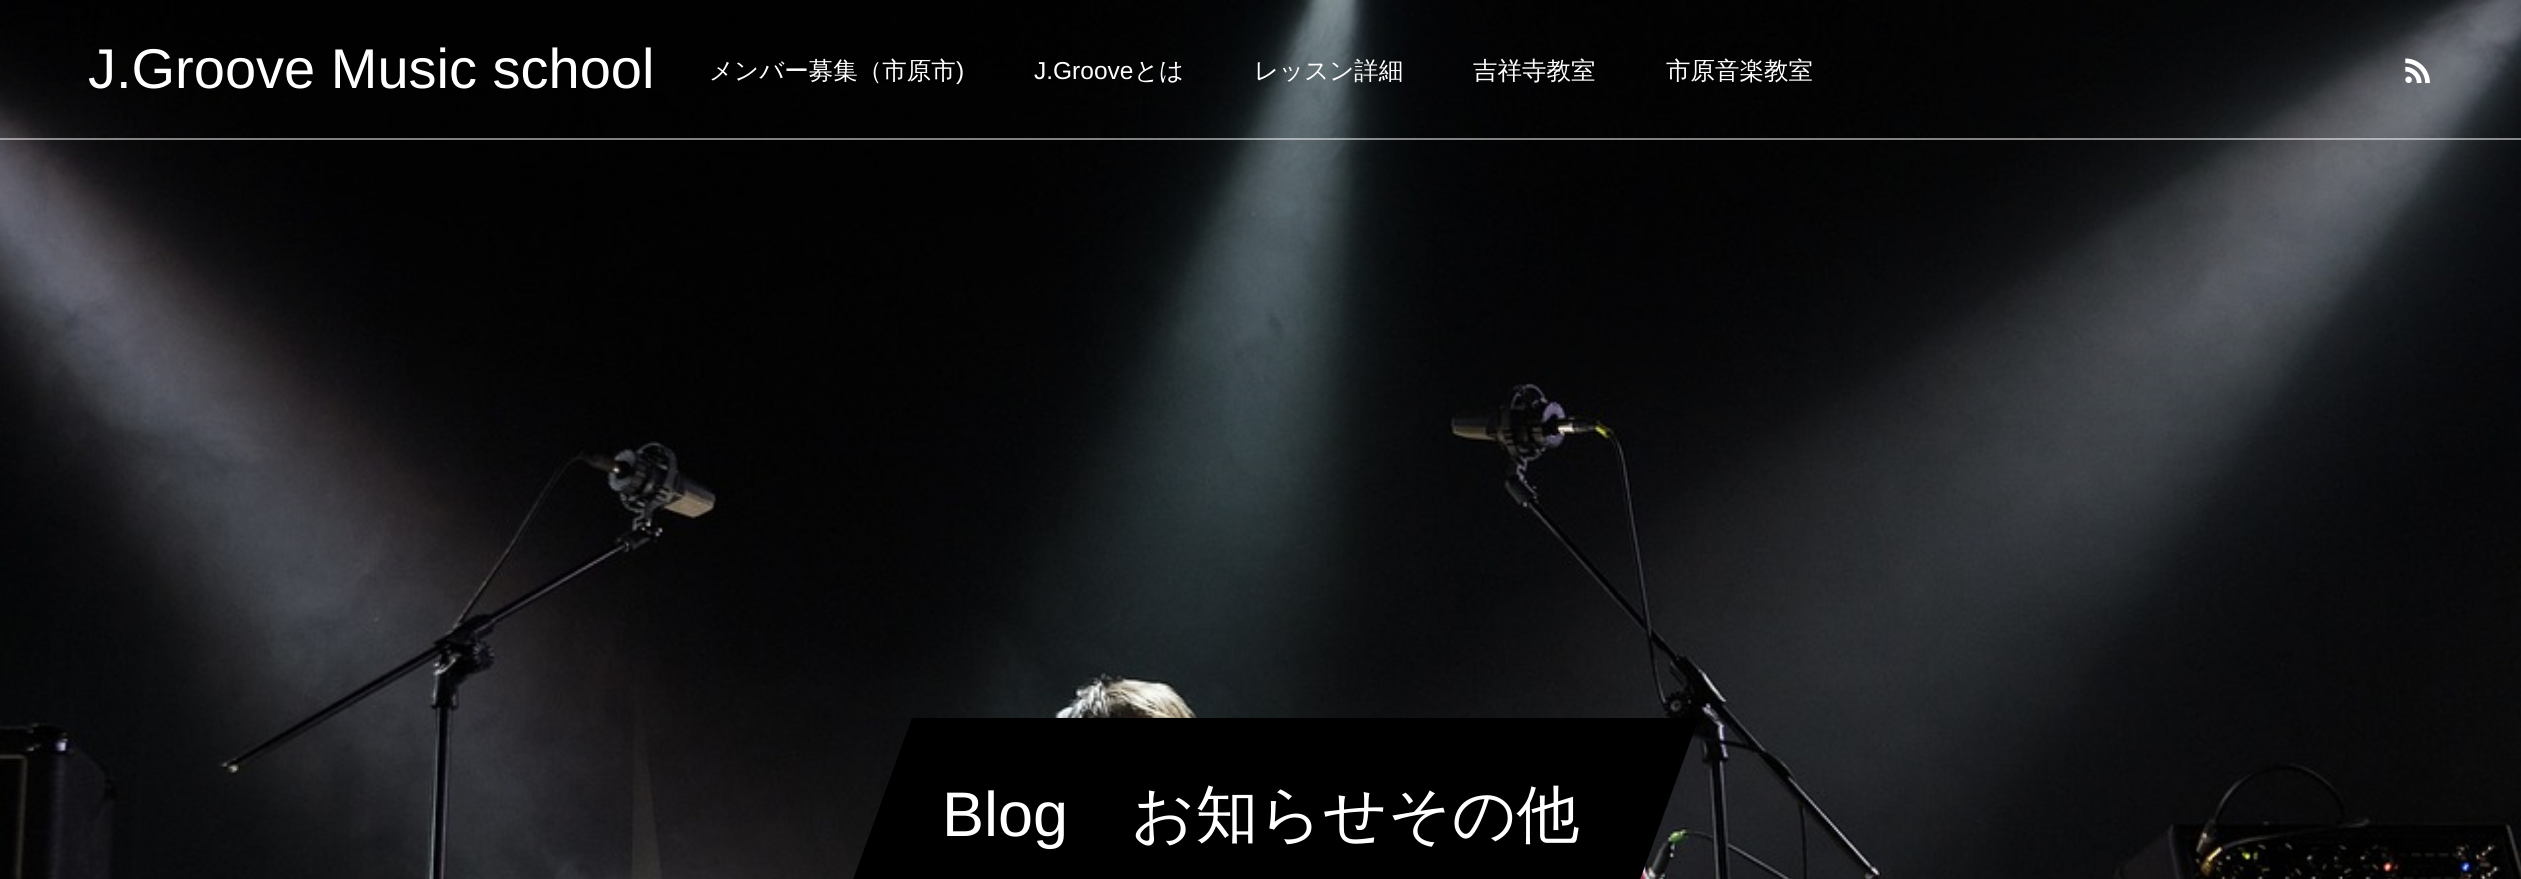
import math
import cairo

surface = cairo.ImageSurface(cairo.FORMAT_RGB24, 2521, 879)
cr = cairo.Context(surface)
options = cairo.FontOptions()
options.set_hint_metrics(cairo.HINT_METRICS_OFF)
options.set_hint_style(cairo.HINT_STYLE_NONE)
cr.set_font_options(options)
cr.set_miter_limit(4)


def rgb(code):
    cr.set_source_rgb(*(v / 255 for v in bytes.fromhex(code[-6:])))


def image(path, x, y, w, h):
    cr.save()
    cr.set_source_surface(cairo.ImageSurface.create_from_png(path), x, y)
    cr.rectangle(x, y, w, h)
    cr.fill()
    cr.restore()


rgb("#ffffff")
cr.paint()
image("img/2.png", 0, 0, 2521, 879)
cr.set_source_rgba(1, 1, 1, 0.5)
cr.rectangle(0, 138, 2521, 2)
cr.fill()
image("img/1.png", 2405, 58, 25, 26)
rgb("#000000")
cr.new_path()
cr.move_to(912, 718)
cr.line_to(1699, 718)
cr.line_to(1610, 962)
cr.line_to(823, 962)
cr.close_path()
cr.fill()
cr.select_font_face("Liberation Sans")
cr.set_font_size(56)
rgb("#ffffff")
cr.move_to(88, 88)
cr.show_text("J.Groove Music school")
cr.select_font_face("WenQuanYi Zen Hei Medium")
cr.set_font_size(24.5)
cr.move_to(709, 79)
cr.show_text("メンバー募集（市原市")
cr.select_font_face("Liberation Sans")
cr.move_to(956, 79)
cr.show_text(")")
cr.move_to(1034, 79)
cr.show_text("J.Groove")
cr.select_font_face("WenQuanYi Zen Hei Medium")
for x, y, s in [
    (1134, 79, "とは"),
    (1254, 79, "レッスン詳細"),
    (1473, 79, "吉祥寺教室"),
    (1666, 79, "市原音楽教室"),
]:
    cr.move_to(x, y)
    cr.show_text(s)
cr.select_font_face("Liberation Sans")
cr.set_font_size(63)
cr.move_to(942, 836)
cr.show_text("Blog")
cr.select_font_face("WenQuanYi Zen Hei Medium")
cr.move_to(1131, 836)
cr.show_text("お知らせその他")
surface.write_to_png("page.png")
